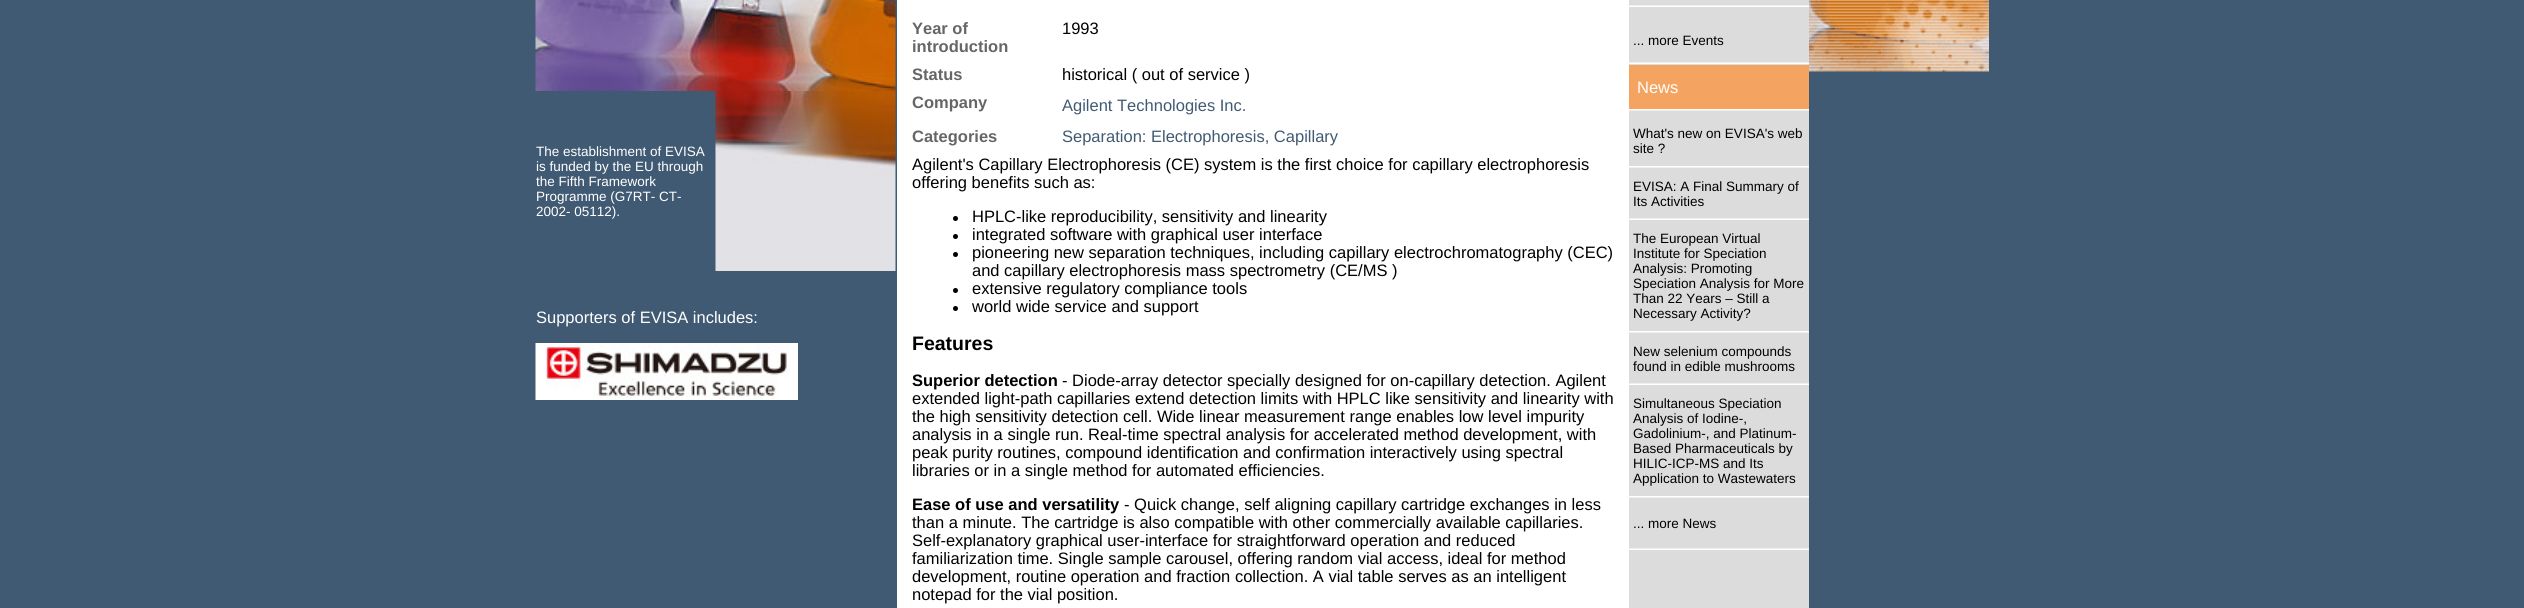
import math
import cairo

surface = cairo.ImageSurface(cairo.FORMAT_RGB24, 2524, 608)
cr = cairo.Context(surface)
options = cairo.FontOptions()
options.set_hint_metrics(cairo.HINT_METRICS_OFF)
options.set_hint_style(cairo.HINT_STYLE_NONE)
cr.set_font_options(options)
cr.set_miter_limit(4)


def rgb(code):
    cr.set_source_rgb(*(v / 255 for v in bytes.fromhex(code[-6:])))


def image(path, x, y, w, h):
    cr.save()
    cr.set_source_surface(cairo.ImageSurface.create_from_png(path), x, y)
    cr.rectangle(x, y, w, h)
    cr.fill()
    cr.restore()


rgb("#415a73")
cr.paint()
image("img/1.png", 535, 0, 181, 91)
image("img/2.png", 715, 0, 181, 91)
image("img/3.png", 715, 91, 181, 180)
image("img/4.png", 535, 343, 263, 57)
rgb("#ffffff")
cr.rectangle(897, 0, 732, 608)
cr.fill()
rgb("#000000")
cr.arc(955.5, 218.5, 2.5, 0, 2 * math.pi)
cr.fill()
cr.arc(955.5, 236.5, 2.5, 0, 2 * math.pi)
cr.fill()
cr.arc(955.5, 254.5, 2.5, 0, 2 * math.pi)
cr.fill()
cr.arc(955.5, 290.5, 2.5, 0, 2 * math.pi)
cr.fill()
cr.arc(955.5, 308.5, 2.5, 0, 2 * math.pi)
cr.fill()
rgb("#dcdcdc")
cr.rectangle(1629, 0, 180, 608)
cr.fill()
image("img/5.png", 1629, 5, 180, 2)
image("img/5.png", 1629, 62, 180, 2)
rgb("#f4a460")
cr.rectangle(1629, 65, 180, 44)
cr.fill()
image("img/6.png", 1629, 109, 180, 2)
image("img/6.png", 1629, 166, 180, 2)
image("img/5.png", 1629, 218, 180, 2)
image("img/6.png", 1629, 331, 180, 2)
image("img/5.png", 1629, 383, 180, 2)
image("img/6.png", 1629, 496, 180, 2)
image("img/5.png", 1629, 548, 180, 2)
image("img/7.png", 1809, 0, 180, 72)
cr.select_font_face("Liberation Sans")
cr.set_font_size(13.5)
rgb("#ffffff")
for x, y, s in [
    (536, 156, "The establishment of EVISA"),
    (536, 171, "is funded by the EU through"),
    (536, 186, "the Fifth Framework"),
    (536, 201, "Programme (G7RT- CT-"),
    (536, 216, "2002- 05112)."),
]:
    cr.move_to(x, y)
    cr.show_text(s)
cr.set_font_size(16.5)
cr.move_to(536, 323)
cr.show_text("Supporters of EVISA includes:")
cr.select_font_face("Liberation Sans", cairo.FONT_SLANT_NORMAL, cairo.FONT_WEIGHT_BOLD)
rgb("#666666")
cr.move_to(912, 34)
cr.show_text("Year of")
cr.move_to(912, 52)
cr.show_text("introduction")
cr.select_font_face("Liberation Sans")
rgb("#000000")
cr.move_to(1062, 34)
cr.show_text("1993")
cr.select_font_face("Liberation Sans", cairo.FONT_SLANT_NORMAL, cairo.FONT_WEIGHT_BOLD)
rgb("#666666")
cr.move_to(912, 80)
cr.show_text("Status")
cr.select_font_face("Liberation Sans")
rgb("#000000")
cr.move_to(1062, 80)
cr.show_text("historical ( out of service )")
cr.select_font_face("Liberation Sans", cairo.FONT_SLANT_NORMAL, cairo.FONT_WEIGHT_BOLD)
rgb("#666666")
cr.move_to(912, 108)
cr.show_text("Company")
cr.select_font_face("Liberation Sans")
rgb("#415a73")
cr.move_to(1062, 111)
cr.show_text("Agilent Technologies Inc.")
cr.select_font_face("Liberation Sans", cairo.FONT_SLANT_NORMAL, cairo.FONT_WEIGHT_BOLD)
rgb("#666666")
cr.move_to(912, 142)
cr.show_text("Categories")
cr.select_font_face("Liberation Sans")
rgb("#415a73")
cr.move_to(1062, 142)
cr.show_text("Separation: Electrophoresis, Capillary")
rgb("#000000")
for x, y, s in [
    (912, 170, "Agilent's Capillary Electrophoresis (CE) system is the first choice for capillary electrophoresis"),
    (912, 188, "offering benefits such as:"),
    (972, 222, "HPLC-like reproducibility, sensitivity and linearity"),
    (972, 240, "integrated software with graphical user interface"),
    (972, 258, "pioneering new separation techniques, including capillary electrochromatography (CEC)"),
    (972, 276, "and capillary electrophoresis mass spectrometry (CE/MS )"),
    (972, 294, "extensive regulatory compliance tools"),
    (972, 312, "world wide service and support"),
]:
    cr.move_to(x, y)
    cr.show_text(s)
cr.select_font_face("Liberation Sans", cairo.FONT_SLANT_NORMAL, cairo.FONT_WEIGHT_BOLD)
cr.set_font_size(19.5)
cr.move_to(912, 350)
cr.show_text("Features")
cr.set_font_size(16.5)
cr.move_to(912, 386)
cr.show_text("Superior detection")
cr.select_font_face("Liberation Sans")
for x, y, s in [
    (1062, 386, "- Diode-array detector specially designed for on-capillary detection. Agilent"),
    (912, 404, "extended light-path capillaries extend detection limits with HPLC like sensitivity and linearity with"),
    (912, 422, "the high sensitivity detection cell. Wide linear measurement range enables low level impurity"),
    (912, 440, "analysis in a single run. Real-time spectral analysis for accelerated method development, with"),
    (912, 458, "peak purity routines, compound identification and confirmation interactively using spectral"),
    (912, 476, "libraries or in a single method for automated efficiencies."),
]:
    cr.move_to(x, y)
    cr.show_text(s)
cr.select_font_face("Liberation Sans", cairo.FONT_SLANT_NORMAL, cairo.FONT_WEIGHT_BOLD)
cr.move_to(912, 510)
cr.show_text("Ease of use and versatility")
cr.select_font_face("Liberation Sans")
for x, y, s in [
    (1124, 510, "- Quick change, self aligning capillary cartridge exchanges in less"),
    (912, 528, "than a minute. The cartridge is also compatible with other commercially available capillaries."),
    (912, 546, "Self-explanatory graphical user-interface for straightforward operation and reduced"),
    (912, 564, "familiarization time. Single sample carousel, offering random vial access, ideal for method"),
    (912, 582, "development, routine operation and fraction collection. A vial table serves as an intelligent"),
    (912, 600, "notepad for the vial position."),
]:
    cr.move_to(x, y)
    cr.show_text(s)
cr.set_font_size(13.5)
cr.move_to(1633, 45)
cr.show_text("... more Events")
cr.set_font_size(16.5)
rgb("#ffffff")
cr.move_to(1637, 93)
cr.show_text("News")
cr.set_font_size(13.5)
rgb("#000000")
for x, y, s in [
    (1633, 138, "What's new on EVISA's web"),
    (1633, 153, "site ?"),
    (1633, 191, "EVISA: A Final Summary of"),
    (1633, 206, "Its Activities"),
    (1633, 243, "The European Virtual"),
    (1633, 258, "Institute for Speciation"),
    (1633, 273, "Analysis: Promoting"),
    (1633, 288, "Speciation Analysis for More"),
    (1633, 303, "Than 22 Years – Still a"),
    (1633, 318, "Necessary Activity?"),
    (1633, 356, "New selenium compounds"),
    (1633, 371, "found in edible mushrooms"),
    (1633, 408, "Simultaneous Speciation"),
    (1633, 423, "Analysis of Iodine-,"),
    (1633, 438, "Gadolinium-, and Platinum-"),
    (1633, 453, "Based Pharmaceuticals by"),
    (1633, 468, "HILIC-ICP-MS and Its"),
    (1633, 483, "Application to Wastewaters"),
    (1633, 528, "... more News"),
]:
    cr.move_to(x, y)
    cr.show_text(s)
surface.write_to_png("page.png")
